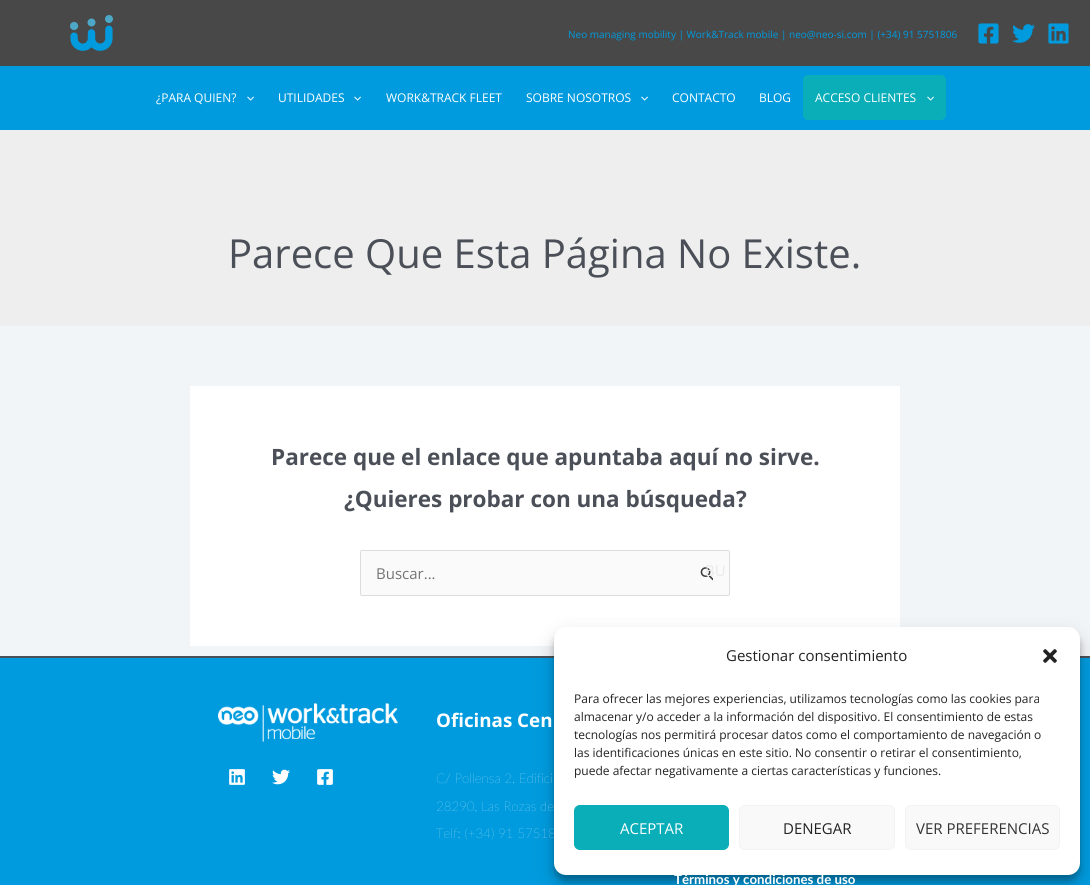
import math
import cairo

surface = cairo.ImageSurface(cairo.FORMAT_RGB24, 1090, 885)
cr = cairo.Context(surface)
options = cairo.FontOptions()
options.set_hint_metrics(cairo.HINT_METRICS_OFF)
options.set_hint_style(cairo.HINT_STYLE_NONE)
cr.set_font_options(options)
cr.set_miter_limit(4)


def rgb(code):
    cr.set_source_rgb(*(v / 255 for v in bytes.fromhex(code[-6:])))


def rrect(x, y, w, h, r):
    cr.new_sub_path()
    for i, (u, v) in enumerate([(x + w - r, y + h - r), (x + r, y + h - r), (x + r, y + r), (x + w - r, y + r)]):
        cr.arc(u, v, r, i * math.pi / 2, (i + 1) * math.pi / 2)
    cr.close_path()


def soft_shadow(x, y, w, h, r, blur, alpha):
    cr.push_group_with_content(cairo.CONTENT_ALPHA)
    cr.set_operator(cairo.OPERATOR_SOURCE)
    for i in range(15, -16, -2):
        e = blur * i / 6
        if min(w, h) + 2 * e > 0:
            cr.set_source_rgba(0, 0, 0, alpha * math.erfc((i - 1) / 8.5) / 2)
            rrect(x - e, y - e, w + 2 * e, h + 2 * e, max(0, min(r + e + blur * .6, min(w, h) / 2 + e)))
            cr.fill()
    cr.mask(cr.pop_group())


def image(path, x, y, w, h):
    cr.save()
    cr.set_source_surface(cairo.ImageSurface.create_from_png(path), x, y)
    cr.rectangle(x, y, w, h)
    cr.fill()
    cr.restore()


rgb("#f2f5f7")
cr.paint()
rgb("#484848")
cr.rectangle(0, 0, 1090, 66)
cr.fill()
image("img/1.png", 70, 15, 43, 36)
image("img/2.png", 978, 23, 21, 21)
image("img/3.png", 1012, 24, 23, 19)
image("img/4.png", 1048, 23, 21, 21)
rgb("#009bde")
cr.rectangle(0, 66, 1090, 64)
cr.fill()
image("img/5.png", 247, 96, 7, 5)
image("img/5.png", 354, 96, 7, 5)
image("img/5.png", 641, 96, 7, 5)
rgb("#09aeb8")
rrect(803, 75, 143, 45, 5)
cr.fill()
image("img/6.png", 927, 96, 7, 5)
rgb("#eeeeee")
cr.rectangle(0, 130, 1090, 196)
cr.fill()
rgb("#ffffff")
cr.rectangle(190, 386, 710, 260)
cr.fill()
rgb("#fafafa")
rrect(360.5, 550.5, 369, 45, 1.5)
cr.fill_preserve()
rgb("#dddddd")
cr.set_line_width(1)
cr.stroke()
image("img/7.png", 700, 567, 13, 14)
rgb("#009bde")
cr.rectangle(0, 658, 1090, 227)
cr.fill()
rgb("#4b4f58")
cr.rectangle(0, 656, 1090, 2)
cr.fill()
image("img/8.png", 218, 703, 180, 39)
image("img/9.png", 229, 769, 16, 16)
image("img/10.png", 272, 769, 18, 16)
image("img/11.png", 317, 769, 16, 16)
rgb("#000000")
soft_shadow(554, 633, 526, 248, 12, 3, 0.23)
soft_shadow(554, 637, 526, 248, 12, 10, 0.19)
rgb("#ffffff")
rrect(554, 627, 526, 248, 12)
cr.fill()
image("img/12.png", 1043, 649, 14, 14)
rgb("#09aeb8")
rrect(574.5, 805.5, 154, 44, 5.5)
cr.fill_preserve()
cr.stroke()
rgb("#f9f9f9")
rrect(739.5, 805.5, 155, 44, 5.5)
cr.fill_preserve()
rgb("#f2f2f2")
cr.stroke()
rgb("#f9f9f9")
rrect(905.5, 805.5, 154, 44, 5.5)
cr.fill_preserve()
rgb("#f2f2f2")
cr.stroke()
cr.select_font_face("Open Sans")
cr.set_font_size(10)
rgb("#009bde")
cr.move_to(568, 38)
cr.show_text("Neo managing mobility | Work&Track mobile | neo@neo-si.com | (+34) 91 5751806")
cr.set_font_size(12)
rgb("#ffffff")
for x, y, s in [
    (156, 102, "¿PARA QUIEN?"),
    (278, 102, "UTILIDADES"),
    (386, 102, "WORK&TRACK FLEET"),
    (526, 102, "SOBRE NOSOTROS"),
    (672, 102, "CONTACTO"),
    (759, 102, "BLOG"),
    (815, 102, "ACCESO CLIENTES"),
]:
    cr.move_to(x, y)
    cr.show_text(s)
cr.set_font_size(40)
rgb("#4b4f58")
cr.move_to(228, 268)
cr.show_text("Parece Que Esta Página No Existe.")
cr.select_font_face("Open Sans", cairo.FONT_SLANT_NORMAL, cairo.FONT_WEIGHT_BOLD)
cr.set_font_size(22.5)
cr.move_to(271, 465)
cr.show_text("Parece que el enlace que apuntaba aquí no sirve.")
cr.move_to(344, 507)
cr.show_text("¿Quieres probar con una búsqueda?")
cr.select_font_face("Open Sans")
cr.set_font_size(15)
rgb("#757575")
cr.move_to(376, 579)
cr.show_text("Buscar...")
rgb("#e9e9e9")
cr.move_to(705, 576)
cr.show_text("BU")
cr.select_font_face("Open Sans", cairo.FONT_SLANT_NORMAL, cairo.FONT_WEIGHT_BOLD)
cr.set_font_size(18.75)
rgb("#ffffff")
cr.move_to(436, 727)
cr.show_text("Oficinas Cen")
cr.select_font_face("Lato ExtraLight")
cr.set_font_size(13.3)
for x, y, s in [
    (436, 783, "C/ Pollensa 2, Edifici"),
    (436, 811, "28290, Las Rozas de"),
    (436, 838, "Telf: (+34) 91 57518"),
]:
    cr.move_to(x, y)
    cr.show_text(s)
cr.select_font_face("Lato", cairo.FONT_SLANT_NORMAL, cairo.FONT_WEIGHT_BOLD)
cr.move_to(674, 884)
cr.show_text("Términos y condiciones de uso")
cr.select_font_face("Open Sans")
cr.set_font_size(15)
rgb("#222222")
cr.move_to(726, 661)
cr.show_text("Gestionar consentimiento")
cr.set_font_size(12)
for x, y, s in [
    (574, 703, "Para ofrecer las mejores experiencias, utilizamos tecnologías como las cookies para"),
    (574, 721, "almacenar y/o acceder a la información del dispositivo. El consentimiento de estas"),
    (574, 739, "tecnologías nos permitirá procesar datos como el comportamiento de navegación o"),
    (574, 757, "las identificaciones únicas en este sitio. No consentir o retirar el consentimiento,"),
    (574, 775, "puede afectar negativamente a ciertas características y funciones."),
]:
    cr.move_to(x, y)
    cr.show_text(s)
cr.set_font_size(15)
rgb("#ffffff")
cr.move_to(620, 834)
cr.show_text("ACEPTAR")
rgb("#222222")
cr.move_to(783, 834)
cr.show_text("DENEGAR")
rgb("#333333")
cr.move_to(916, 834)
cr.show_text("VER PREFERENCIAS")
surface.write_to_png("page.png")
